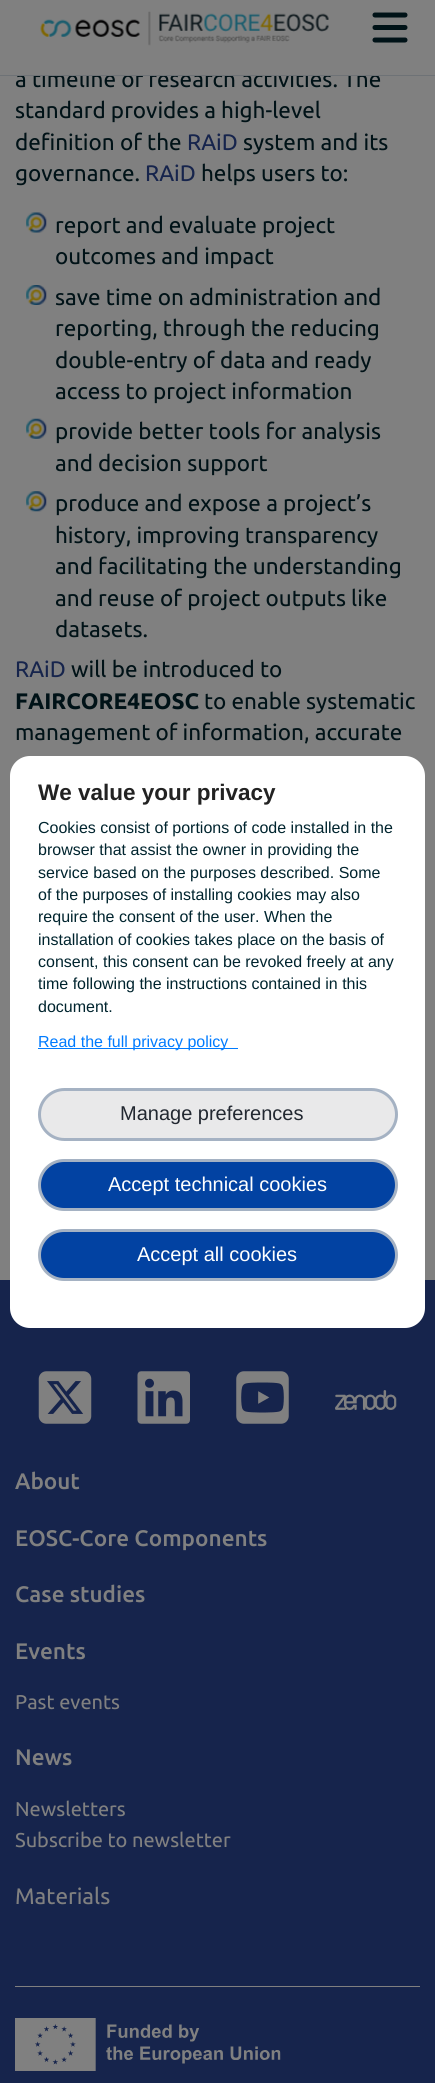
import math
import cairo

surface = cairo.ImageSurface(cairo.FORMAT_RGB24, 435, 2083)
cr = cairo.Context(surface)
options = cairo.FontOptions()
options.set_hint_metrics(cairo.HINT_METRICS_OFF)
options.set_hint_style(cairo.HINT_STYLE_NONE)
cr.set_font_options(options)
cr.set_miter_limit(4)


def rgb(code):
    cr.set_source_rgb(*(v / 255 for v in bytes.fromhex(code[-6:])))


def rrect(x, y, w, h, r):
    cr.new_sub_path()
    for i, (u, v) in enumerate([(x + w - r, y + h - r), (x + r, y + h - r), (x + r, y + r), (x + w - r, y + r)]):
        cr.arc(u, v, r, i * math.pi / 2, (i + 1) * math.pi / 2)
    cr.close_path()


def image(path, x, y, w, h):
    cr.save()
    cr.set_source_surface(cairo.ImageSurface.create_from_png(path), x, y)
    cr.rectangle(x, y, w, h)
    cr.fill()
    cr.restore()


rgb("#808080")
cr.paint()
image("img/1.png", 40, 11, 289, 35)
image("img/2.png", 372, 12, 36, 31)
image("img/3.png", 26, 212, 21, 21)
image("img/4.png", 26, 285, 21, 20)
image("img/5.png", 26, 418, 21, 21)
image("img/6.png", 26, 491, 21, 21)
rgb("#16244c")
cr.rectangle(0, 1280, 435, 803)
cr.fill()
image("img/7.png", 38, 1371, 54, 53)
image("img/8.png", 137, 1371, 53, 53)
image("img/9.png", 236, 1371, 53, 53)
image("img/10.png", 335, 1390, 62, 20)
rgb("#808080")
cr.rectangle(15, 1986, 405, 1)
cr.fill()
image("img/11.png", 15, 2018, 266, 53)
rgb("#ffffff")
rrect(10, 756, 415, 572, 20)
cr.fill()
rgb("#007bff")
cr.rectangle(38, 1048, 200, 1)
cr.fill()
rgb("#e9e9ea")
rrect(39.5, 1089.5, 357, 50, 25)
cr.fill_preserve()
rgb("#a5b2c3")
cr.set_line_width(3)
cr.stroke()
rgb("#0242a2")
rrect(39.5, 1160.5, 357, 49, 24.5)
cr.fill_preserve()
rgb("#a5b2c3")
cr.stroke()
rgb("#0242a2")
rrect(39.5, 1230.5, 357, 49, 24.5)
cr.fill_preserve()
rgb("#a5b2c3")
cr.stroke()
cr.select_font_face("Ubuntu")
cr.set_font_size(22.5)
rgb("#001217")
cr.move_to(15, 87)
cr.show_text("a timeline of research activities. The")
rgb("#6e7276")
cr.rectangle(0, 75, 435, 1)
cr.fill()
rgb("#808080")
cr.rectangle(33, 69, 327, 6)
cr.fill()
rgb("#001217")
cr.move_to(15, 118)
cr.show_text("standard provides a high-level")
cr.move_to(15, 150)
cr.show_text("definition of the")
rgb("#16244c")
cr.move_to(187, 150)
cr.show_text("RAiD")
rgb("#001217")
cr.move_to(243, 150)
cr.show_text("system and its")
cr.move_to(15, 181)
cr.show_text("governance.")
rgb("#16244c")
cr.move_to(145, 181)
cr.show_text("RAiD")
rgb("#001217")
for x, y, s in [
    (201, 181, "helps users to:"),
    (55, 233, "report and evaluate project"),
    (55, 264, "outcomes and impact"),
    (55, 305, "save time on administration and"),
    (55, 336, "reporting, through the reducing"),
    (55, 368, "double-entry of data and ready"),
    (55, 399, "access to project information"),
    (55, 439, "provide better tools for analysis"),
    (55, 471, "and decision support"),
    (55, 511, "produce and expose a project’s"),
    (55, 543, "history, improving transparency"),
    (55, 574, "and facilitating the understanding"),
    (55, 606, "and reuse of project outputs like"),
    (55, 637, "datasets."),
]:
    cr.move_to(x, y)
    cr.show_text(s)
rgb("#16244c")
cr.move_to(15, 677)
cr.show_text("RAiD")
rgb("#001217")
cr.move_to(71, 677)
cr.show_text("will be introduced to")
cr.select_font_face("Ubuntu", cairo.FONT_SLANT_NORMAL, cairo.FONT_WEIGHT_BOLD)
cr.move_to(15, 709)
cr.show_text("FAIRCORE4EOSC")
cr.select_font_face("Ubuntu")
cr.move_to(204, 709)
cr.show_text("to enable systematic")
cr.move_to(15, 740)
cr.show_text("management of information, accurate")
cr.select_font_face("Ubuntu Medium")
rgb("#808080")
for x, y, s in [
    (15, 1489, "About"),
    (15, 1546, "EOSC-Core Components"),
    (15, 1602, "Case studies"),
    (15, 1659, "Events"),
]:
    cr.move_to(x, y)
    cr.show_text(s)
cr.select_font_face("Ubuntu")
cr.set_font_size(20)
cr.move_to(15, 1709)
cr.show_text("Past events")
cr.select_font_face("Ubuntu Medium")
cr.set_font_size(22.5)
cr.move_to(15, 1765)
cr.show_text("News")
cr.select_font_face("Ubuntu")
cr.set_font_size(20)
cr.move_to(15, 1816)
cr.show_text("Newsletters")
cr.move_to(15, 1847)
cr.show_text("Subscribe to newsletter")
cr.set_font_size(22.5)
cr.move_to(15, 1904)
cr.show_text("Materials")
cr.select_font_face("Liberation Sans", cairo.FONT_SLANT_NORMAL, cairo.FONT_WEIGHT_BOLD)
rgb("#222222")
cr.move_to(38, 800)
cr.show_text("We value your privacy")
cr.select_font_face("Liberation Sans")
cr.set_font_size(16)
rgb("#00242e")
for x, y, s in [
    (38, 833, "Cookies consist of portions of code installed in the"),
    (38, 855, "browser that assist the owner in providing the"),
    (38, 878, "service based on the purposes described. Some"),
    (38, 900, "of the purposes of installing cookies may also"),
    (38, 922, "require the consent of the user. When the"),
    (38, 945, "installation of cookies takes place on the basis of"),
    (38, 967, "consent, this consent can be revoked freely at any"),
    (38, 989, "time following the instructions contained in this"),
    (38, 1012, "document."),
]:
    cr.move_to(x, y)
    cr.show_text(s)
rgb("#007bff")
cr.move_to(38, 1047)
cr.show_text("Read the full privacy policy")
cr.set_font_size(20)
rgb("#222831")
cr.move_to(120, 1120)
cr.show_text("Manage preferences")
rgb("#ffffff")
cr.move_to(108, 1191)
cr.show_text("Accept technical cookies")
cr.move_to(137, 1261)
cr.show_text("Accept all cookies")
surface.write_to_png("page.png")
